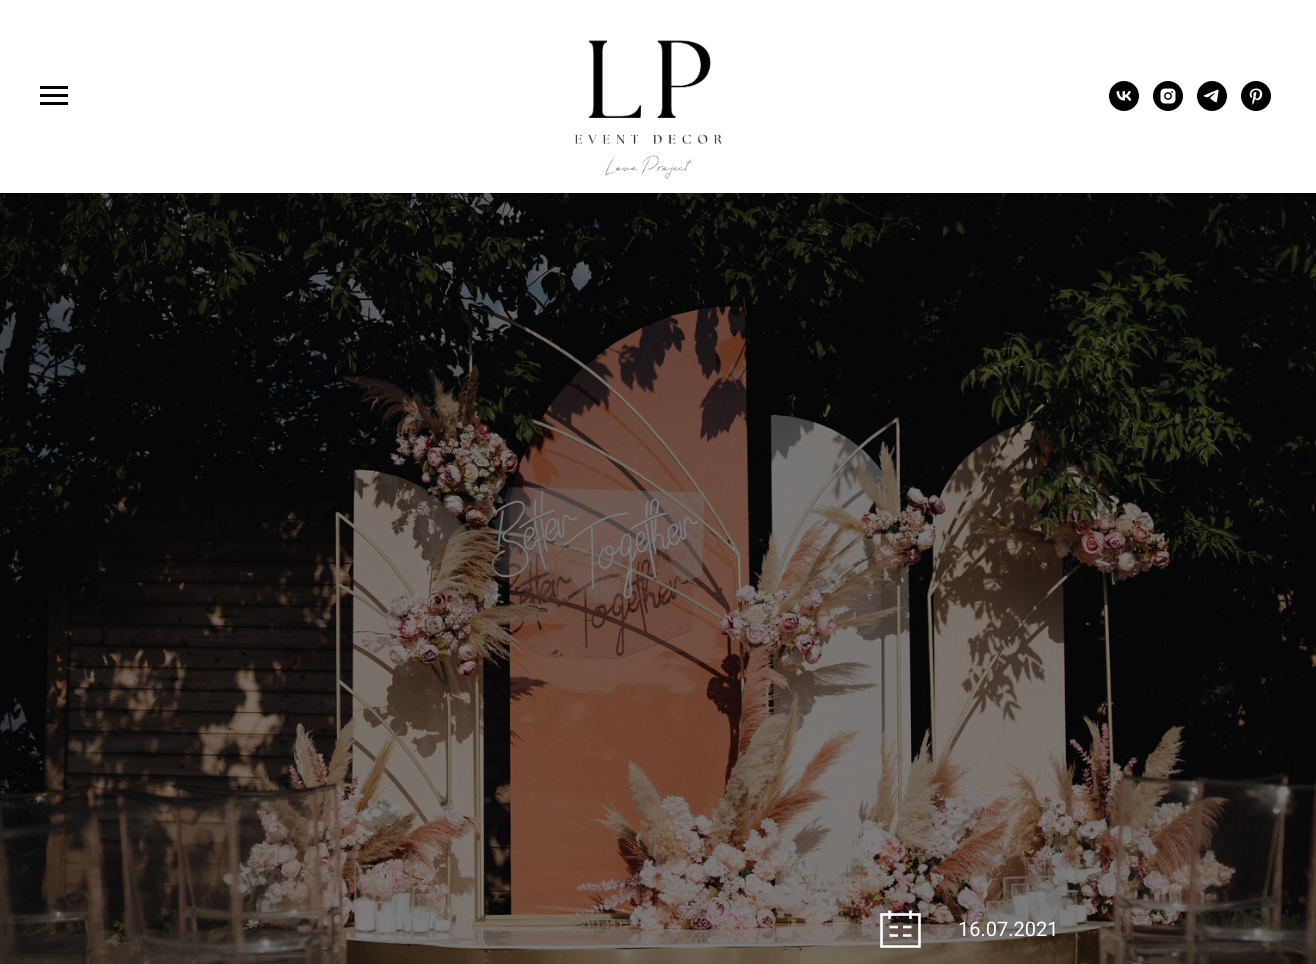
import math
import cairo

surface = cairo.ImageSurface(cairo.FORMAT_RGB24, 1316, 964)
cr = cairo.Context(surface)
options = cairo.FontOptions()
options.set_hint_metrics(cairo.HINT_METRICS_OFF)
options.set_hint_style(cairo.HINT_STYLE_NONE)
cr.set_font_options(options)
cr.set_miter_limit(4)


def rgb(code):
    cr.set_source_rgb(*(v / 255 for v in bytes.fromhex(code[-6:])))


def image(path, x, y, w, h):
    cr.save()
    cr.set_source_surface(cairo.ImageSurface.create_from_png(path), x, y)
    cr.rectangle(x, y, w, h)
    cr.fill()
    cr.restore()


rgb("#ffffff")
cr.paint()
for x, y, w, h, color in [
    (40, 86, 28, 3, "#000000"),
    (40, 94, 28, 3, "#000000"),
    (40, 102, 28, 3, "#000000"),
]:
    rgb(color)
    cr.rectangle(x, y, w, h)
    cr.fill()
image("img/1.png", 575, 40, 147, 139)
image("img/2.png", 1109, 81, 30, 30)
image("img/3.png", 1153, 81, 30, 30)
image("img/4.png", 1197, 81, 30, 30)
image("img/5.png", 1241, 81, 30, 30)
image("img/6.png", 0, 193, 1316, 771)
cr.new_path()
cr.move_to(915.5, 914.5)
cr.line_to(919.5, 914.5)
cr.line_to(919.5, 946.5)
cr.line_to(881.5, 946.5)
cr.line_to(881.5, 914.5)
cr.line_to(911.5, 914.5)
cr.close_path()
cr.move_to(889.5, 919)
cr.line_to(889.5, 910.5)
cr.move_to(898, 935.5)
cr.line_to(889.5, 935.5)
cr.move_to(911.5, 935.5)
cr.line_to(903, 935.5)
cr.move_to(898, 927)
cr.line_to(889.5, 927)
cr.move_to(911.5, 927)
cr.line_to(903, 927)
cr.move_to(910.5, 919)
cr.line_to(910.5, 910.5)
rgb("#ffffff")
cr.set_line_width(2.6)
cr.stroke()
cr.select_font_face("Roboto")
cr.set_font_size(20)
cr.move_to(958, 936)
cr.show_text("16.07.2021")
surface.write_to_png("page.png")
